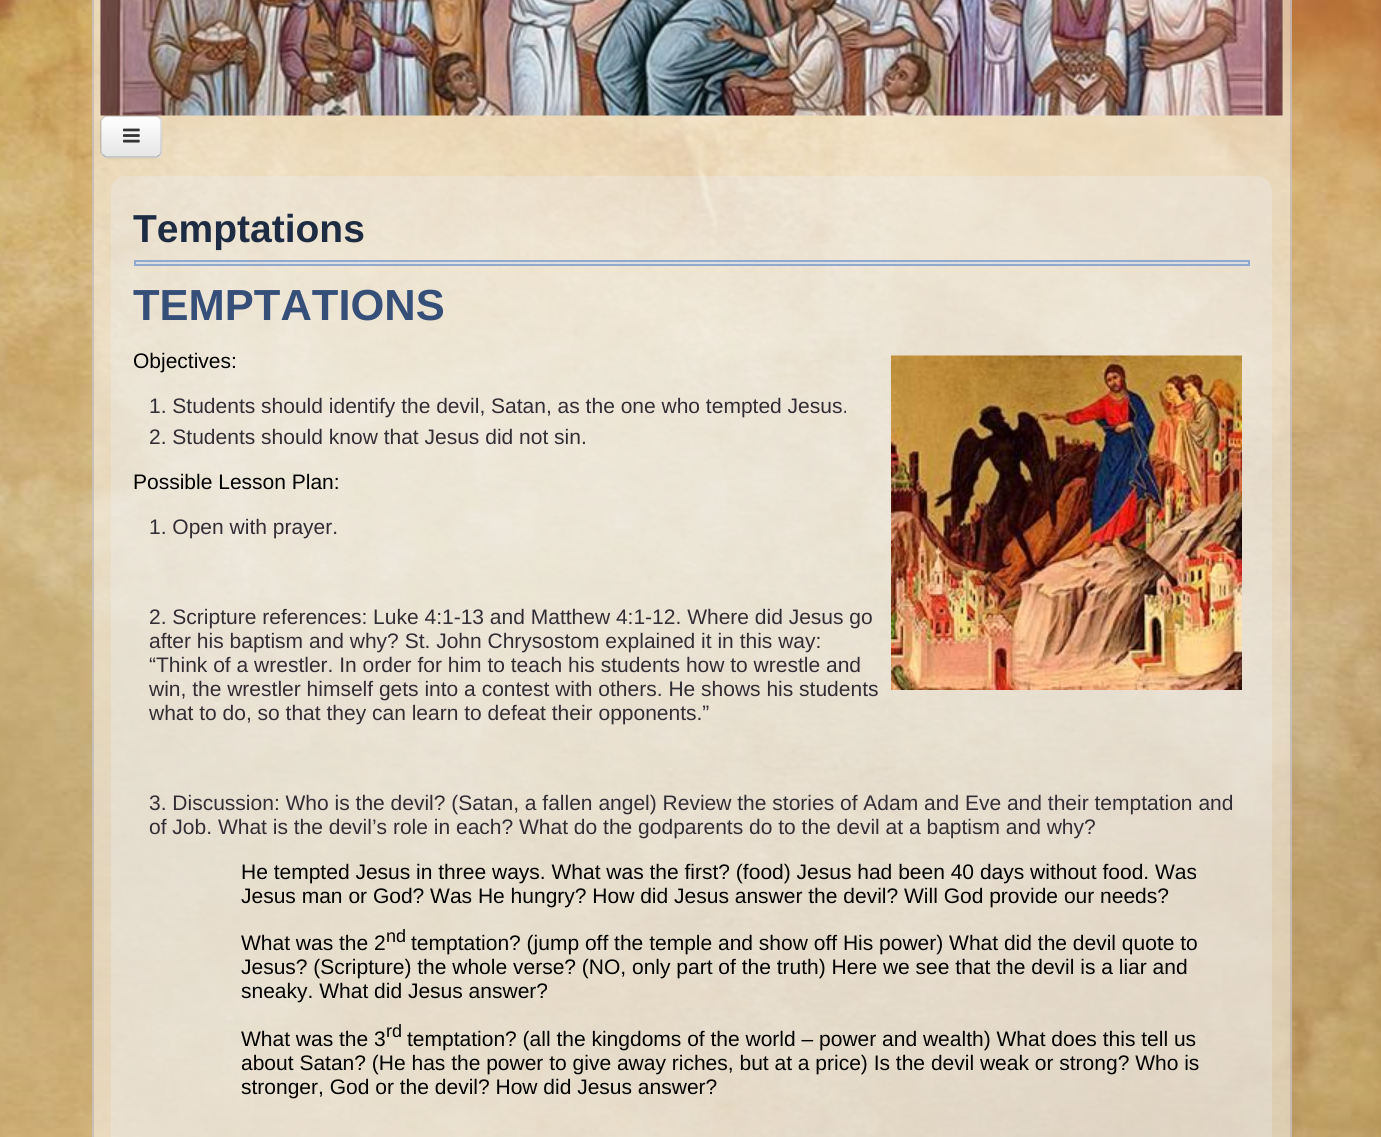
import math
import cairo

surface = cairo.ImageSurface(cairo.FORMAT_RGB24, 1381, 1137)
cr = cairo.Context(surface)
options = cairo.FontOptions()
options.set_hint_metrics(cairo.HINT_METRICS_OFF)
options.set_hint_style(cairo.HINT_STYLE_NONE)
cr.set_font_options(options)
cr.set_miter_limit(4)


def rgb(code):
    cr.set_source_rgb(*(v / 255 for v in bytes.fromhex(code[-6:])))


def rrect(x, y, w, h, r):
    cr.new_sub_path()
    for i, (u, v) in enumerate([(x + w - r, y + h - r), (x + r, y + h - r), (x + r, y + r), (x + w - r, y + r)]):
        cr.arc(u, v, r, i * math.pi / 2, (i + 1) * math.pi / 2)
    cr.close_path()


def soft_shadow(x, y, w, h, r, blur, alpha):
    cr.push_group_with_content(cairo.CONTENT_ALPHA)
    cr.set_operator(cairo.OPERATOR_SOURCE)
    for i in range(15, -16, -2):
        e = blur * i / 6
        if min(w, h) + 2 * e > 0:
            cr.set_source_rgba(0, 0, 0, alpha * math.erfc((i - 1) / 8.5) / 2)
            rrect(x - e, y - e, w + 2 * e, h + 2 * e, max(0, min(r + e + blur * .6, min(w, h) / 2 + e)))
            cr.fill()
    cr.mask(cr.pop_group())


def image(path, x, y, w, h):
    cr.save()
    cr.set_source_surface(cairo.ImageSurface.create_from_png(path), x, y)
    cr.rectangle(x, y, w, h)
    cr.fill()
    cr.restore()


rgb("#ffffff")
cr.paint()
image("img/1.png", 0, 0, 1381, 1137)
cr.set_source_rgba(1, 1, 1, 0.5)
cr.rectangle(92, 0, 1200, 1137)
cr.fill()
cr.rectangle(93, -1, 1198, 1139)
cr.set_source_rgba(0.675, 0.647, 0.694, 0.5)
cr.stroke()
image("img/2.png", 100, 0, 1183, 116)
rgb("#000000")
soft_shadow(101, 117, 61, 42, 6, 1.5, 0.05)
rgb("#f5f5f5")
rrect(101, 116, 61, 42, 6)
cr.fill()
cr.save()
rrect(101, 116, 61, 42, 6)
cr.clip()
gradient = cairo.LinearGradient(131, 117, 131, 156)
gradient.add_color_stop_rgba(0, 1, 1, 1, 1)
gradient.add_color_stop_rgba(1, 0.902, 0.902, 0.902, 1)
cr.set_source(gradient)
cr.rectangle(101, 117, 61, 39)
cr.fill()
cr.restore()
cr.set_source_rgba(1, 1, 1, 0.2)
cr.new_path()
cr.move_to(106, 118)
cr.line_to(139, 118)
cr.curve_to(160, 118, 160, 114, 160, 133)
cr.line_to(160, 154)
cr.curve_to(162, 152, 161, 149, 161, 146)
cr.line_to(161, 136)
cr.curve_to(161, 114, 163, 117, 140, 117)
cr.line_to(115, 117)
cr.curve_to(109, 117, 102, 115, 102, 123)
cr.curve_to(102, 121, 104, 118, 106, 118)
cr.close_path()
cr.fill()
cr.new_path()
cr.move_to(159.5, 155)
cr.curve_to(158.5, 156, 157.5, 157, 156, 157)
cr.line_to(106.5, 157)
cr.curve_to(105, 157, 104, 156, 103, 155)
cr.set_source_rgba(0, 0, 0, 0.25)
cr.set_line_width(1.5)
cr.stroke()
cr.new_path()
cr.move_to(103, 155)
cr.curve_to(102, 154, 101, 153, 101, 151.5)
cr.line_to(101, 121.5)
cr.curve_to(101, 120, 102, 119, 103, 118)
cr.curve_to(104, 117, 105, 116, 106.5, 116)
cr.line_to(156, 116)
cr.curve_to(157.5, 116, 158.5, 117, 159.5, 118)
cr.curve_to(160.5, 119, 161, 120, 161, 121.5)
cr.line_to(161, 151.5)
cr.curve_to(161, 153, 160.5, 154, 159.5, 155)
cr.set_source_rgba(0, 0, 0, 0.15)
cr.stroke()
image("img/3.png", 123, 128, 17, 15)
cr.set_source_rgba(0.918, 0.933, 0.965, 0.3)
rrect(111, 176, 1161, 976, 15)
cr.fill()
cr.set_source_rgba(0.82, 0.859, 0.922, 0.5)
cr.rectangle(135, 261, 1114, 4)
cr.fill_preserve()
rgb("#91a9cf")
cr.set_line_width(2)
cr.stroke()
image("img/4.png", 891, 355, 351, 335)
cr.select_font_face("Liberation Sans", cairo.FONT_SLANT_NORMAL, cairo.FONT_WEIGHT_BOLD)
cr.set_font_size(39)
rgb("#1e2c43")
cr.move_to(133, 242)
cr.show_text("Temptations")
cr.set_font_size(43.5)
rgb("#354f79")
cr.move_to(133, 320)
cr.show_text("TEMPTATIONS")
cr.select_font_face("Liberation Sans")
cr.set_font_size(21)
rgb("#000000")
cr.move_to(133, 368)
cr.show_text("Objectives:")
rgb("#312d34")
cr.move_to(149, 413)
cr.show_text("1. Students should identify the devil, Satan, as the one who tempted Jesus.")
cr.move_to(149, 444)
cr.show_text("2. Students should know that Jesus did not sin.")
rgb("#000000")
cr.move_to(133, 489)
cr.show_text("Possible Lesson Plan:")
rgb("#312d34")
for x, y, s in [
    (149, 534, "1. Open with prayer."),
    (149, 624, "2. Scripture references: Luke 4:1-13 and Matthew 4:1-12. Where did Jesus go"),
    (149, 648, "after his baptism and why? St. John Chrysostom explained it in this way:"),
    (149, 672, "“Think of a wrestler. In order for him to teach his students how to wrestle and"),
    (149, 696, "win, the wrestler himself gets into a contest with others. He shows his students"),
    (149, 720, "what to do, so that they can learn to defeat their opponents.”"),
    (149, 810, "3. Discussion: Who is the devil? (Satan, a fallen angel) Review the stories of Adam and Eve and their temptation and"),
    (149, 834, "of Job. What is the devil’s role in each? What do the godparents do to the devil at a baptism and why?"),
]:
    cr.move_to(x, y)
    cr.show_text(s)
rgb("#000000")
for x, y, s in [
    (241, 879, "He tempted Jesus in three ways. What was the first? (food) Jesus had been 40 days without food. Was"),
    (241, 903, "Jesus man or God? Was He hungry? How did Jesus answer the devil? Will God provide our needs?"),
    (241, 950, "What was the 2"),
]:
    cr.move_to(x, y)
    cr.show_text(s)
cr.set_font_size(18)
cr.move_to(386, 942)
cr.show_text("nd")
cr.set_font_size(21)
for x, y, s in [
    (411, 950, "temptation? (jump off the temple and show off His power) What did the devil quote to"),
    (241, 974, "Jesus? (Scripture) the whole verse? (NO, only part of the truth) Here we see that the devil is a liar and"),
    (241, 998, "sneaky. What did Jesus answer?"),
    (241, 1046, "What was the 3"),
]:
    cr.move_to(x, y)
    cr.show_text(s)
cr.set_font_size(18)
cr.move_to(386, 1037)
cr.show_text("rd")
cr.set_font_size(21)
for x, y, s in [
    (407, 1046, "temptation? (all the kingdoms of the world – power and wealth) What does this tell us"),
    (241, 1070, "about Satan? (He has the power to give away riches, but at a price) Is the devil weak or strong? Who is"),
    (241, 1094, "stronger, God or the devil? How did Jesus answer?"),
]:
    cr.move_to(x, y)
    cr.show_text(s)
surface.write_to_png("page.png")
